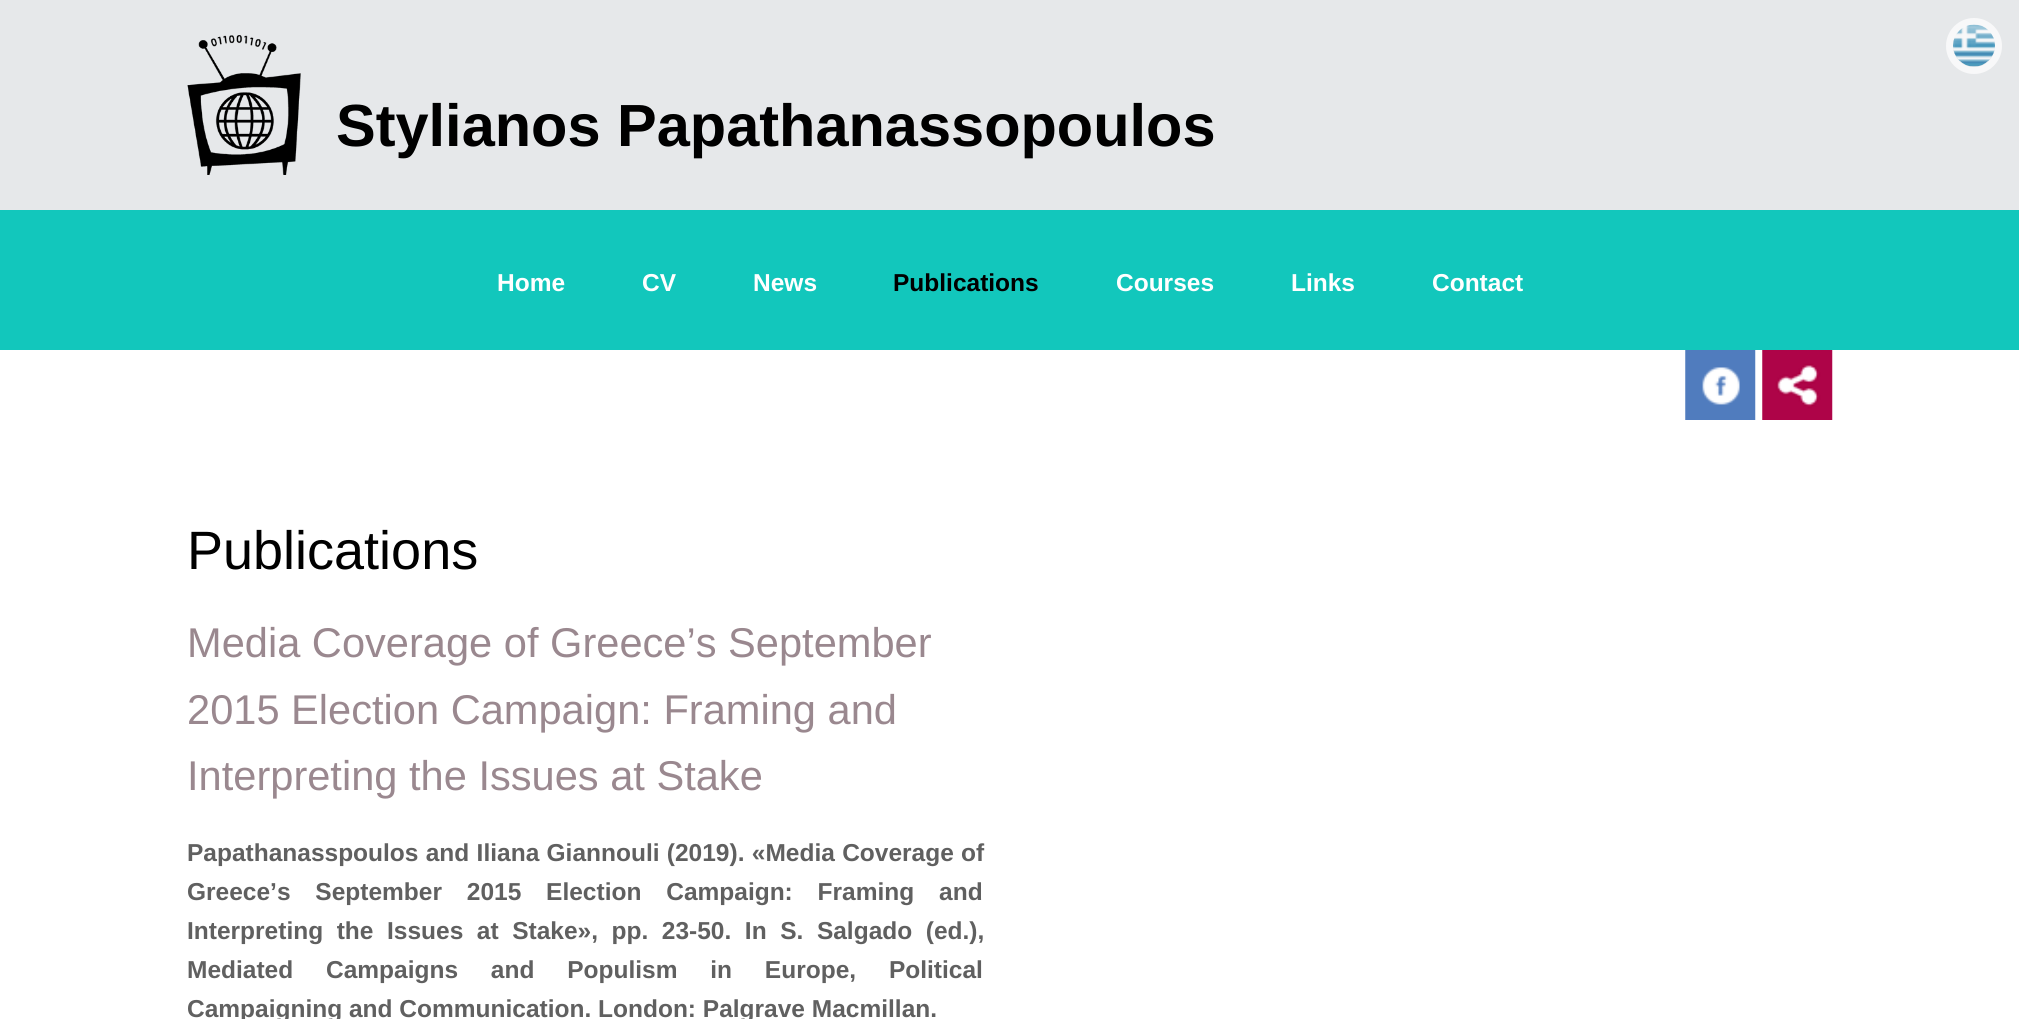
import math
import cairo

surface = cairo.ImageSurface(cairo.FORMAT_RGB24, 2019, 1019)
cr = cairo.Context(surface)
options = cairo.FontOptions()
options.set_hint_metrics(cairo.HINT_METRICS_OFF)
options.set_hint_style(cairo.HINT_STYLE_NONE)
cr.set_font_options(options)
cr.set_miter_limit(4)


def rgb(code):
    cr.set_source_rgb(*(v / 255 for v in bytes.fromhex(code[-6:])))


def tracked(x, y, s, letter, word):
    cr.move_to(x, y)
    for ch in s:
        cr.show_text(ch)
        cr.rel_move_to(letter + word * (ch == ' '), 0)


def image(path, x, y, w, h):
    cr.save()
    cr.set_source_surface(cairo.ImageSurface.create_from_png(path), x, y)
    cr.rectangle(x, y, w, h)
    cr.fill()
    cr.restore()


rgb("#12c7bc")
cr.paint()
rgb("#e6e8ea")
cr.rectangle(0, 0, 2019, 210)
cr.fill()
cr.arc(1974, 46, 24.5, 0, 2 * math.pi)
rgb("#f8f8f9")
cr.set_line_width(7)
cr.stroke()
image("img/1.png", 1953, 24, 42, 43)
image("img/2.png", 187, 35, 114, 140)
rgb("#ffffff")
cr.rectangle(0, 350, 2019, 669)
cr.fill()
image("img/3.png", 1685, 350, 71, 70)
image("img/4.png", 1762, 350, 71, 70)
cr.select_font_face("Liberation Sans", cairo.FONT_SLANT_NORMAL, cairo.FONT_WEIGHT_BOLD)
cr.set_font_size(59.5)
rgb("#000000")
cr.move_to(336, 146)
cr.show_text("Stylianos Papathanassopoulos")
cr.set_font_size(24.5)
rgb("#ffffff")
for x, y, s in [
    (497, 291, "Home"),
    (642, 291, "CV"),
    (753, 291, "News"),
]:
    cr.move_to(x, y)
    cr.show_text(s)
rgb("#000000")
cr.move_to(893, 291)
cr.show_text("Publications")
rgb("#ffffff")
for x, y, s in [
    (1116, 291, "Courses"),
    (1291, 291, "Links"),
    (1432, 291, "Contact"),
]:
    cr.move_to(x, y)
    cr.show_text(s)
cr.select_font_face("Liberation Sans")
cr.set_font_size(54)
rgb("#000000")
cr.move_to(187, 569)
cr.show_text("Publications")
cr.set_font_size(41.6)
rgb("#9a888f")
for x, y, s in [
    (187, 657, "Media Coverage of Greece’s September"),
    (187, 724, "2015 Election Campaign: Framing and"),
    (187, 790, "Interpreting the Issues at Stake"),
]:
    cr.move_to(x, y)
    cr.show_text(s)
cr.select_font_face("Liberation Sans", cairo.FONT_SLANT_NORMAL, cairo.FONT_WEIGHT_BOLD)
cr.set_font_size(24.5)
rgb("#606060")
tracked(187, 861, "Papathanasspoulos and Iliana Giannouli (2019). «Media Coverage of", 0, 0.5)
tracked(187, 900, "Greece’s September 2015 Election Campaign: Framing and", 0, 18)
tracked(187, 939, "Interpreting the Issues at Stake», pp. 23-50. In S. Salgado (ed.),", 0, 6.75)
tracked(187, 978, "Mediated Campaigns and Populism in Europe, Political", 0, 26)
cr.move_to(187, 1017)
cr.show_text("Campaigning and Communication. London: Palgrave Macmillan.")
surface.write_to_png("page.png")
